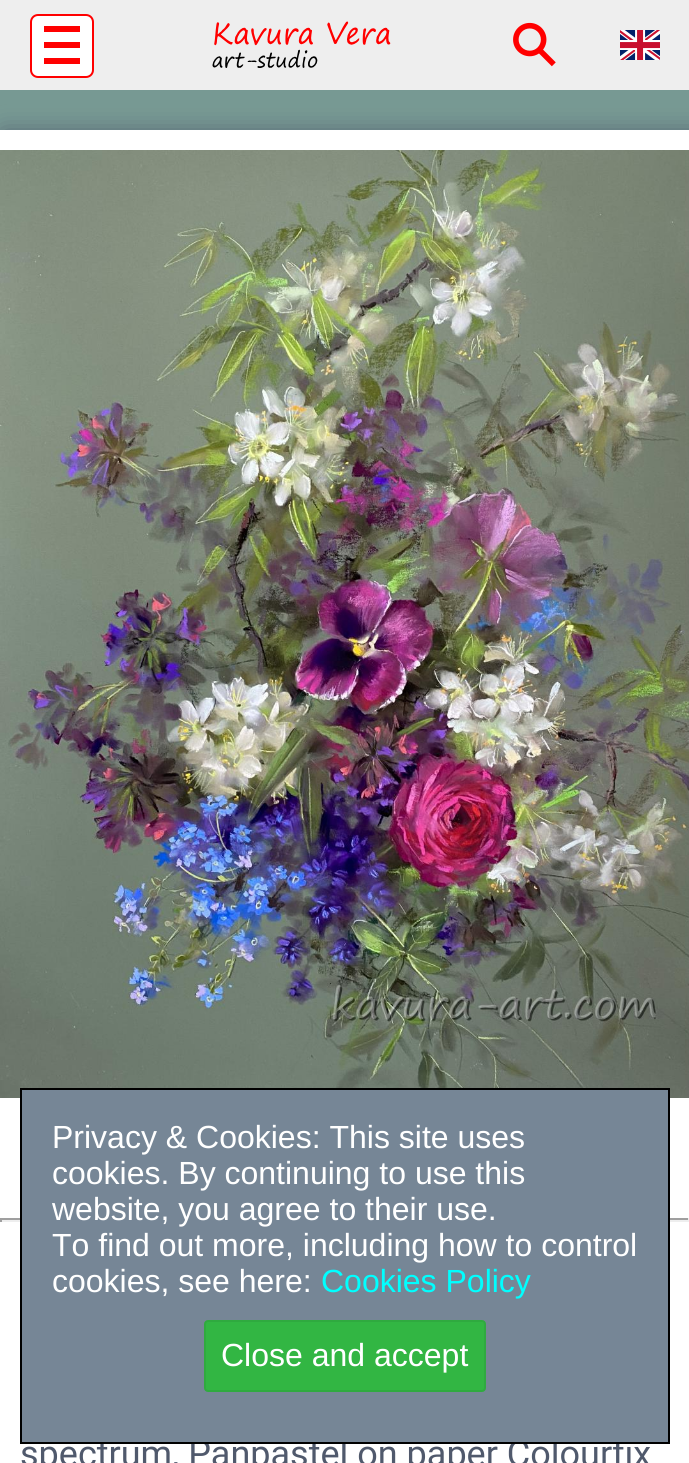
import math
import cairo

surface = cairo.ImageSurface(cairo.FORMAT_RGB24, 689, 1463)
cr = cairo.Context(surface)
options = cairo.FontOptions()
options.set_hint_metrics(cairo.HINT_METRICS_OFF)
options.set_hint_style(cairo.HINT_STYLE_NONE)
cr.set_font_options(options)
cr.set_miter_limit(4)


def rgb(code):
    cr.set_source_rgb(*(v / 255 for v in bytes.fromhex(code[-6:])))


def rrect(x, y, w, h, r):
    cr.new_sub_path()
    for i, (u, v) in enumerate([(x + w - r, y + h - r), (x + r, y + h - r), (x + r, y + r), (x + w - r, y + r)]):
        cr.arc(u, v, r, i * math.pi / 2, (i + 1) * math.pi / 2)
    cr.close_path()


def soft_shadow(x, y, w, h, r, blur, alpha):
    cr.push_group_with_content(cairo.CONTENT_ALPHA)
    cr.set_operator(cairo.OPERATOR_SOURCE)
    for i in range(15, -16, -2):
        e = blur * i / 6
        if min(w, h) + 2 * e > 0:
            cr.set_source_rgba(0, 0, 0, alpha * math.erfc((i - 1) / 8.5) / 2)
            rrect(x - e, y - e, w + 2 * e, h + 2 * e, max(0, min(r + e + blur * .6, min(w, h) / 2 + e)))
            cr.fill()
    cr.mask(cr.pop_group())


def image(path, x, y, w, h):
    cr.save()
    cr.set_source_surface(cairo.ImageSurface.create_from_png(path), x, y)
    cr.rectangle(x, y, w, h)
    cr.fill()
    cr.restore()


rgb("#779993")
cr.paint()
rgb("#eeeeee")
cr.rectangle(0, 0, 689, 90)
cr.fill()
rgb("#ffffff")
rrect(31, 15, 62, 62, 7)
cr.fill_preserve()
rgb("#ff0000")
cr.stroke()
for x, y, w, h, color in [
    (44, 58, 36, 6, "#ff0000"),
    (44, 26, 36, 6, "#ff0000"),
    (44, 42, 36, 6, "#ff0000"),
]:
    rgb(color)
    cr.rectangle(x, y, w, h)
    cr.fill()
image("img/1.png", 212, 21, 179, 47)
image("img/2.png", 513, 22, 43, 45)
image("img/3.png", 620, 30, 40, 30)
rgb("#50596c")
soft_shadow(4, 134, 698, 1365, 0, 12, 1)
rgb("#ffffff")
cr.rectangle(0, 130, 689, 1333)
cr.fill()
image("img/4.png", 0, 150, 689, 948)
for x, y, w, h, color in [
    (0, 1218, 689, 2, "#9f9f9f"),
    (688, 1218, 1, 4, "#eeeeee"),
    (0, 1220, 689, 2, "#eeeeee"),
    (0, 1218, 2, 4, "#9f9f9f"),
]:
    rgb(color)
    cr.rectangle(x, y, w, h)
    cr.fill()
cr.select_font_face("Roboto")
cr.set_font_size(36)
rgb("#50596c")
cr.move_to(20, 1466)
cr.show_text("spectrum, Panpastel on paper Colourfix")
rgb("#768696")
cr.rectangle(21, 1089, 648, 354)
cr.fill_preserve()
rgb("#000000")
cr.stroke()
rgb("#32b643")
rrect(205, 1321, 280, 70, 3)
cr.fill_preserve()
rgb("#2faa3f")
cr.stroke()
cr.select_font_face("Liberation Sans")
cr.set_font_size(32)
rgb("#ffffff")
cr.move_to(221, 1366)
cr.show_text("Close and accept")
rgb("#00ffff")
cr.move_to(321, 1292)
cr.show_text("Cookies Policy")
rgb("#ffffff")
for x, y, s in [
    (52, 1292, "cookies, see here:"),
    (52, 1256, "To find out more, including how to control"),
    (52, 1220, "website, you agree to their use."),
    (52, 1184, "cookies. By continuing to use this"),
    (52, 1148, "Privacy & Cookies: This site uses"),
]:
    cr.move_to(x, y)
    cr.show_text(s)
surface.write_to_png("page.png")
